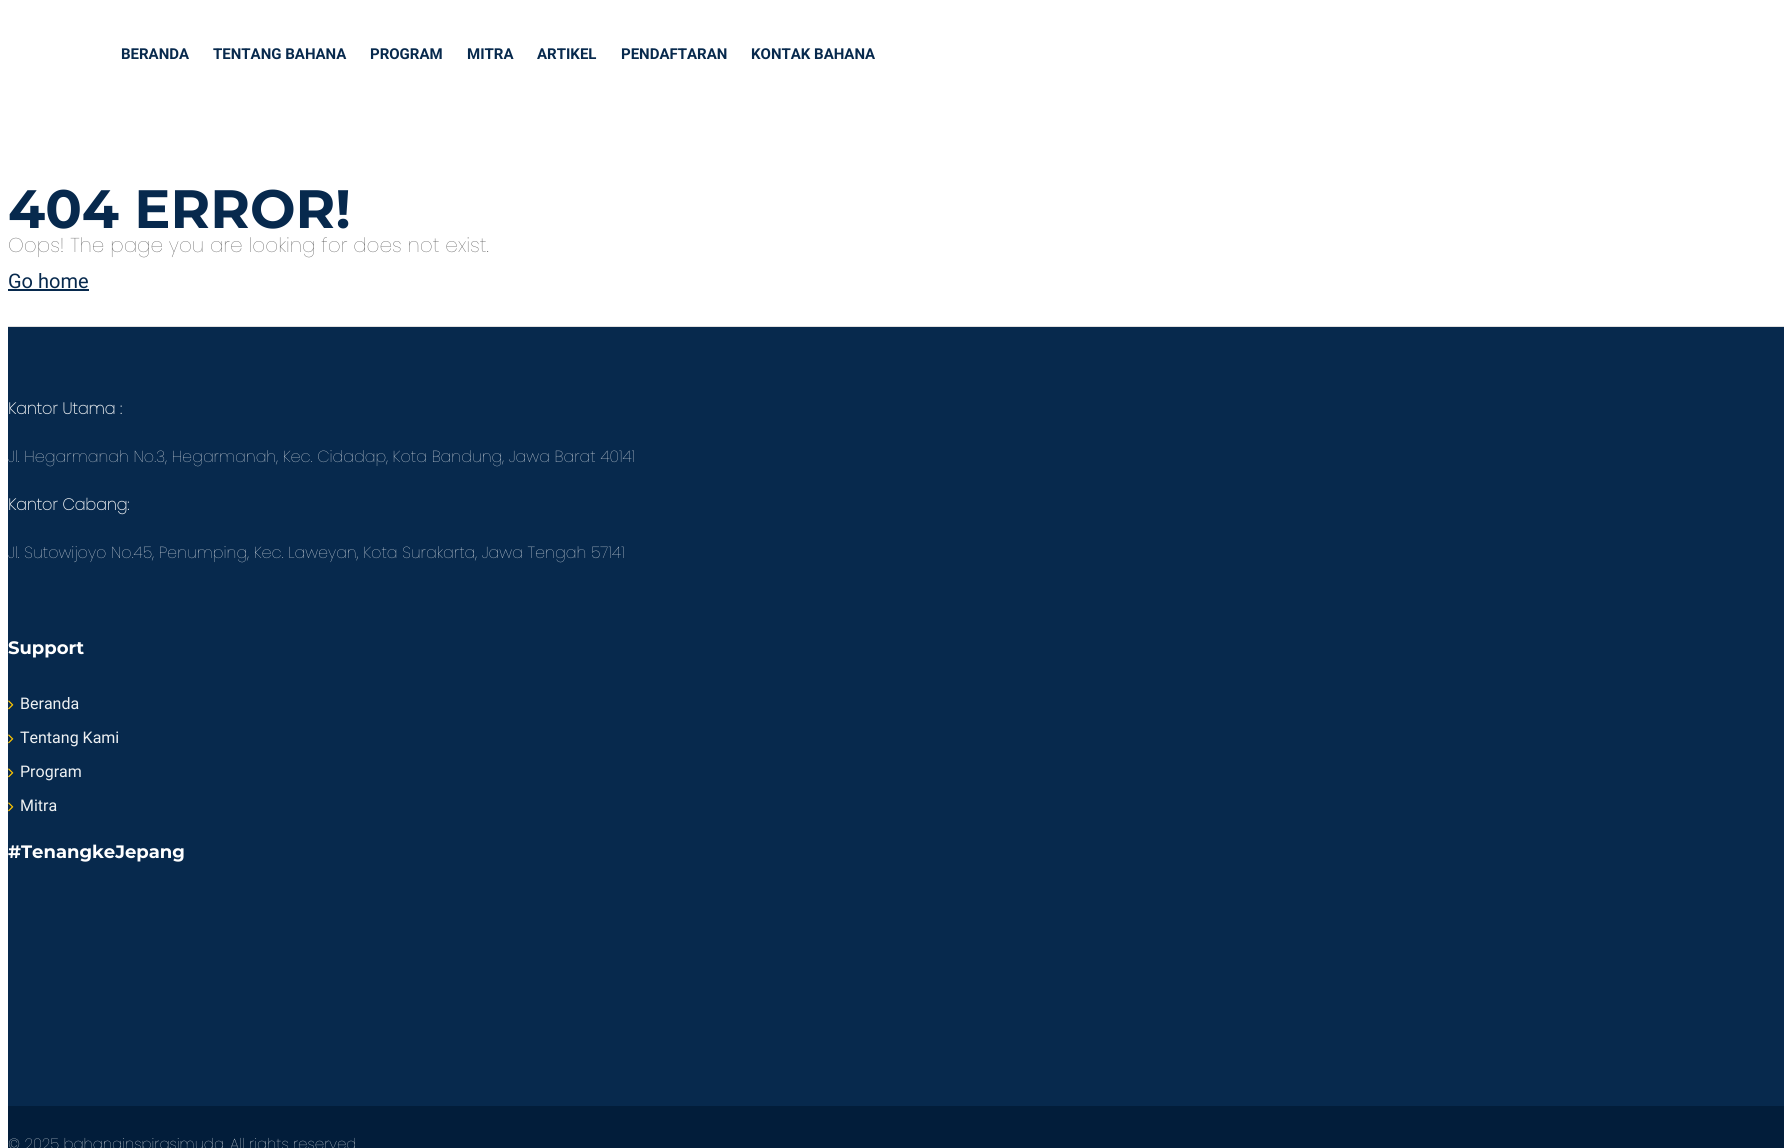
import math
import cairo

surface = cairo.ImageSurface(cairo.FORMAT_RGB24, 1792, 1148)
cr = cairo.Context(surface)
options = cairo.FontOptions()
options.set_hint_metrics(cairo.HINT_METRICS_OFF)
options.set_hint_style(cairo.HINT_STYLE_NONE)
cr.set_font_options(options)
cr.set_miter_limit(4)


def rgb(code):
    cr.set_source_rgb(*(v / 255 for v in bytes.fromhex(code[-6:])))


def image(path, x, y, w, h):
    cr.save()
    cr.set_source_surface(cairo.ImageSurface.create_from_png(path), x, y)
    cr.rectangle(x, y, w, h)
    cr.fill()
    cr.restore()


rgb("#ffffff")
cr.paint()
for x, y, w, h, color in [
    (8, 289, 81, 2, "#07294d"),
    (8, 327, 1776, 779, "#07294d"),
    (8, 326, 1776, 1, "#e0e0e0"),
]:
    rgb(color)
    cr.rectangle(x, y, w, h)
    cr.fill()
image("img/1.png", 8, 700, 6, 10)
image("img/1.png", 8, 734, 6, 10)
image("img/1.png", 8, 768, 6, 10)
image("img/1.png", 8, 802, 6, 10)
rgb("#021d3a")
cr.rectangle(8, 1106, 1776, 42)
cr.fill()
cr.select_font_face("Roboto", cairo.FONT_SLANT_NORMAL, cairo.FONT_WEIGHT_BOLD)
cr.set_font_size(15)
rgb("#07294d")
for x, y, s in [
    (121, 59, "BERANDA"),
    (213, 59, "TENTANG BAHANA"),
    (370, 59, "PROGRAM"),
    (467, 59, "MITRA"),
    (537, 59, "ARTIKEL"),
    (621, 59, "PENDAFTARAN"),
    (751, 59, "KONTAK BAHANA"),
]:
    cr.move_to(x, y)
    cr.show_text(s)
cr.select_font_face("Montserrat", cairo.FONT_SLANT_NORMAL, cairo.FONT_WEIGHT_BOLD)
cr.set_font_size(54)
cr.move_to(8, 228)
cr.show_text("404 ERROR!")
cr.select_font_face("Poppins Thin")
cr.set_font_size(20)
rgb("#505050")
cr.move_to(8, 252)
cr.show_text("Oops! The page you are looking for does not exist.")
cr.select_font_face("Roboto")
rgb("#07294d")
cr.move_to(8, 288)
cr.show_text("Go home")
cr.select_font_face("Poppins", cairo.FONT_SLANT_NORMAL, cairo.FONT_WEIGHT_BOLD)
cr.set_font_size(16)
rgb("#edf0f2")
cr.move_to(8, 414)
cr.show_text("Kantor Utama :")
cr.select_font_face("Poppins Thin")
cr.move_to(8, 462)
cr.show_text("Jl. Hegarmanah No.3, Hegarmanah, Kec. Cidadap, Kota Bandung, Jawa Barat 40141")
cr.select_font_face("Poppins", cairo.FONT_SLANT_NORMAL, cairo.FONT_WEIGHT_BOLD)
cr.move_to(8, 510)
cr.show_text("Kantor Cabang:")
cr.select_font_face("Poppins Thin")
cr.move_to(8, 558)
cr.show_text("Jl. Sutowijoyo No.45, Penumping, Kec. Laweyan, Kota Surakarta, Jawa Tengah 57141")
cr.select_font_face("Montserrat", cairo.FONT_SLANT_NORMAL, cairo.FONT_WEIGHT_BOLD)
cr.set_font_size(18)
rgb("#ffffff")
cr.move_to(8, 654)
cr.show_text("Support")
cr.select_font_face("Roboto")
cr.set_font_size(16)
rgb("#edf0f2")
for x, y, s in [
    (20, 709, "Beranda"),
    (20, 743, "Tentang Kami"),
    (20, 777, "Program"),
    (20, 811, "Mitra"),
]:
    cr.move_to(x, y)
    cr.show_text(s)
cr.select_font_face("Montserrat", cairo.FONT_SLANT_NORMAL, cairo.FONT_WEIGHT_BOLD)
cr.set_font_size(18)
rgb("#ffffff")
cr.move_to(8, 858)
cr.show_text("#TenangkeJepang")
cr.select_font_face("Poppins Thin")
cr.set_font_size(15)
rgb("#edf0f2")
cr.move_to(8, 1149)
cr.show_text("© 2025 bahanainspirasimuda. All rights reserved")
surface.write_to_png("page.png")
